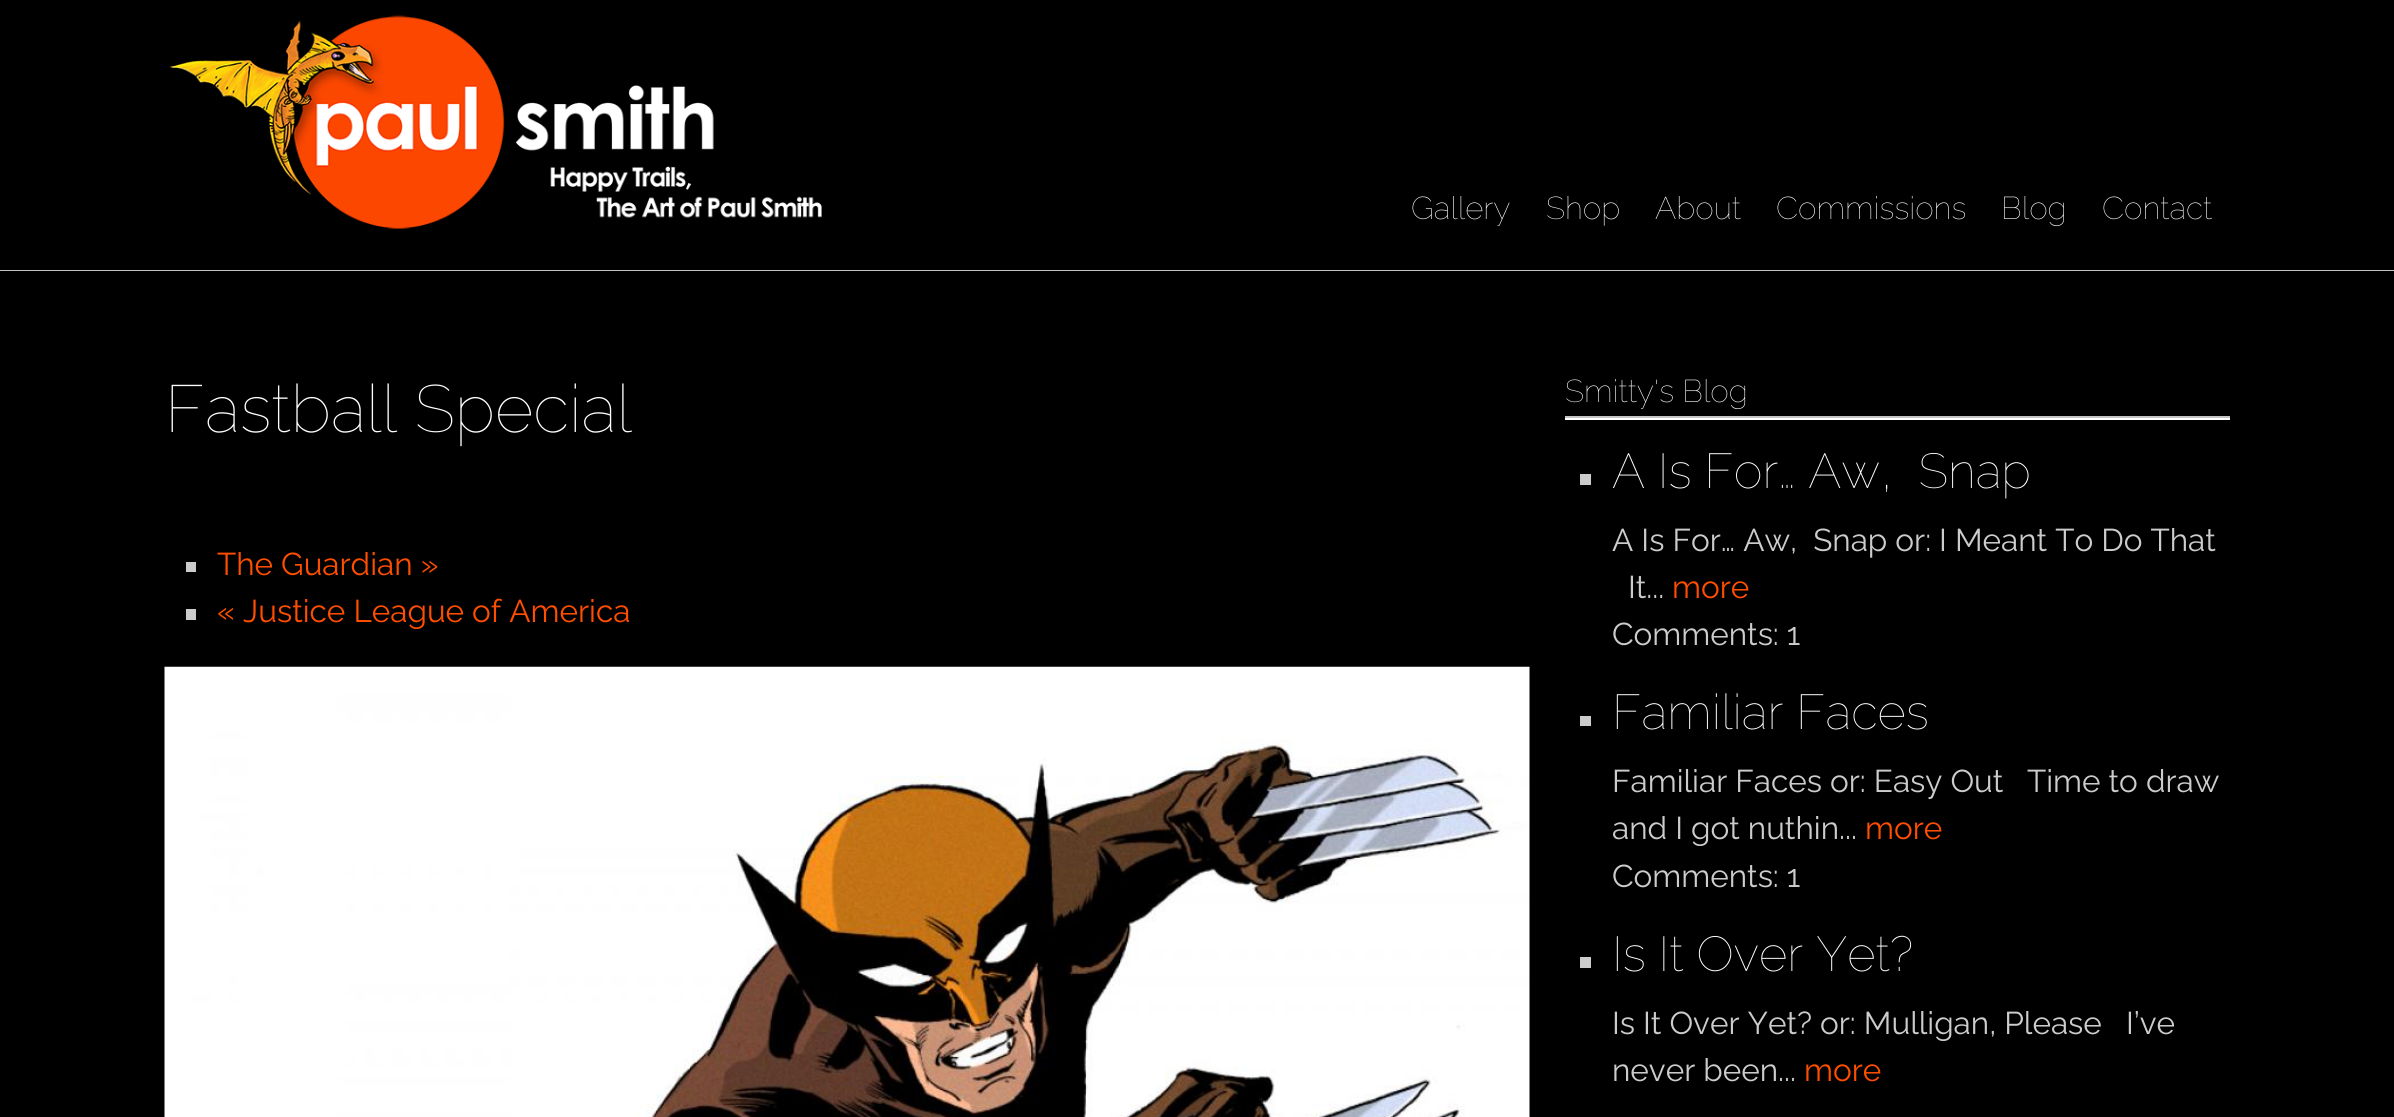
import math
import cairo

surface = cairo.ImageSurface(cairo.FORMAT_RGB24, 2394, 1117)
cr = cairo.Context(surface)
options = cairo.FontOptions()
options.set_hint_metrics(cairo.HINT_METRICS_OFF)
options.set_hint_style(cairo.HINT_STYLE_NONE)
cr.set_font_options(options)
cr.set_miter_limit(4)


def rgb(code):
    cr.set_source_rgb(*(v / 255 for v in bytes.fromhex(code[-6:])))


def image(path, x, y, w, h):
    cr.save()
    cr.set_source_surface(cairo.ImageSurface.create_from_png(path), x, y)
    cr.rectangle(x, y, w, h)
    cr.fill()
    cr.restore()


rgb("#000000")
cr.paint()
rgb("#c2c2c2")
cr.rectangle(0, 270, 2394, 1)
cr.fill()
image("img/1.png", 169, 15, 653, 214)
rgb("#cccccc")
cr.rectangle(186, 562, 10, 10)
cr.fill()
cr.rectangle(186, 609, 10, 11)
cr.fill()
image("img/2.png", 164, 666, 1366, 451)
rgb("#ffffff")
cr.new_path()
cr.move_to(1565, 416)
cr.line_to(1565, 420)
cr.line_to(2230, 420)
cr.line_to(2230, 380)
cr.line_to(2230, 416)
cr.close_path()
cr.fill()
rgb("#c5c5c5")
cr.new_path()
cr.move_to(1565, 416)
cr.line_to(1565, 418)
cr.line_to(2230, 418)
cr.line_to(2230, 378)
cr.line_to(2230, 416)
cr.close_path()
cr.fill()
for x, y, w, h, color in [
    (1580, 474, 11, 11, "#cccccc"),
    (1580, 716, 11, 10, "#cccccc"),
    (1580, 957, 11, 11, "#cccccc"),
]:
    rgb(color)
    cr.rectangle(x, y, w, h)
    cr.fill()
cr.select_font_face("Raleway Thin")
cr.set_font_size(31.5)
rgb("#ffffff")
for x, y, s in [
    (1411, 219, "Gallery"),
    (1546, 219, "Shop"),
    (1655, 219, "About"),
    (1776, 219, "Commissions"),
    (2001, 219, "Blog"),
    (2102, 219, "Contact"),
]:
    cr.move_to(x, y)
    cr.show_text(s)
cr.set_font_size(66.5)
cr.move_to(165, 432)
cr.show_text("Fastball Special")
cr.select_font_face("Raleway")
cr.set_font_size(31.5)
rgb("#ff4e00")
cr.move_to(217, 575)
cr.show_text("The Guardian »")
cr.move_to(217, 622)
cr.show_text("« Justice League of America")
cr.select_font_face("Raleway Thin")
rgb("#ffffff")
cr.move_to(1565, 402)
cr.show_text("Smitty's Blog")
cr.set_font_size(49)
cr.move_to(1612, 488)
cr.show_text("A Is For… Aw,  Snap")
cr.select_font_face("Raleway")
cr.set_font_size(31.5)
rgb("#cccccc")
cr.move_to(1612, 551)
cr.show_text("A Is For… Aw,  Snap or: I Meant To Do That")
cr.move_to(1628, 598)
cr.show_text("It...")
rgb("#ff4e00")
cr.move_to(1672, 598)
cr.show_text("more")
rgb("#cccccc")
cr.move_to(1612, 645)
cr.show_text("Comments: 1")
cr.select_font_face("Raleway Thin")
cr.set_font_size(49)
rgb("#ffffff")
cr.move_to(1612, 729)
cr.show_text("Familiar Faces")
cr.select_font_face("Raleway")
cr.set_font_size(31.5)
rgb("#cccccc")
for x, y, s in [
    (1612, 792, "Familiar Faces or: Easy Out"),
    (2027, 792, "Time to draw"),
    (1612, 839, "and I got nuthin..."),
]:
    cr.move_to(x, y)
    cr.show_text(s)
rgb("#ff4e00")
cr.move_to(1865, 839)
cr.show_text("more")
rgb("#cccccc")
cr.move_to(1612, 887)
cr.show_text("Comments: 1")
cr.select_font_face("Raleway Thin")
cr.set_font_size(49)
rgb("#ffffff")
cr.move_to(1612, 971)
cr.show_text("Is It Over Yet?")
cr.select_font_face("Raleway")
cr.set_font_size(31.5)
rgb("#cccccc")
for x, y, s in [
    (1612, 1034, "Is It Over Yet? or: Mulligan, Please"),
    (2126, 1034, "I’ve"),
    (1612, 1081, "never been..."),
]:
    cr.move_to(x, y)
    cr.show_text(s)
rgb("#ff4e00")
cr.move_to(1804, 1081)
cr.show_text("more")
surface.write_to_png("page.png")
